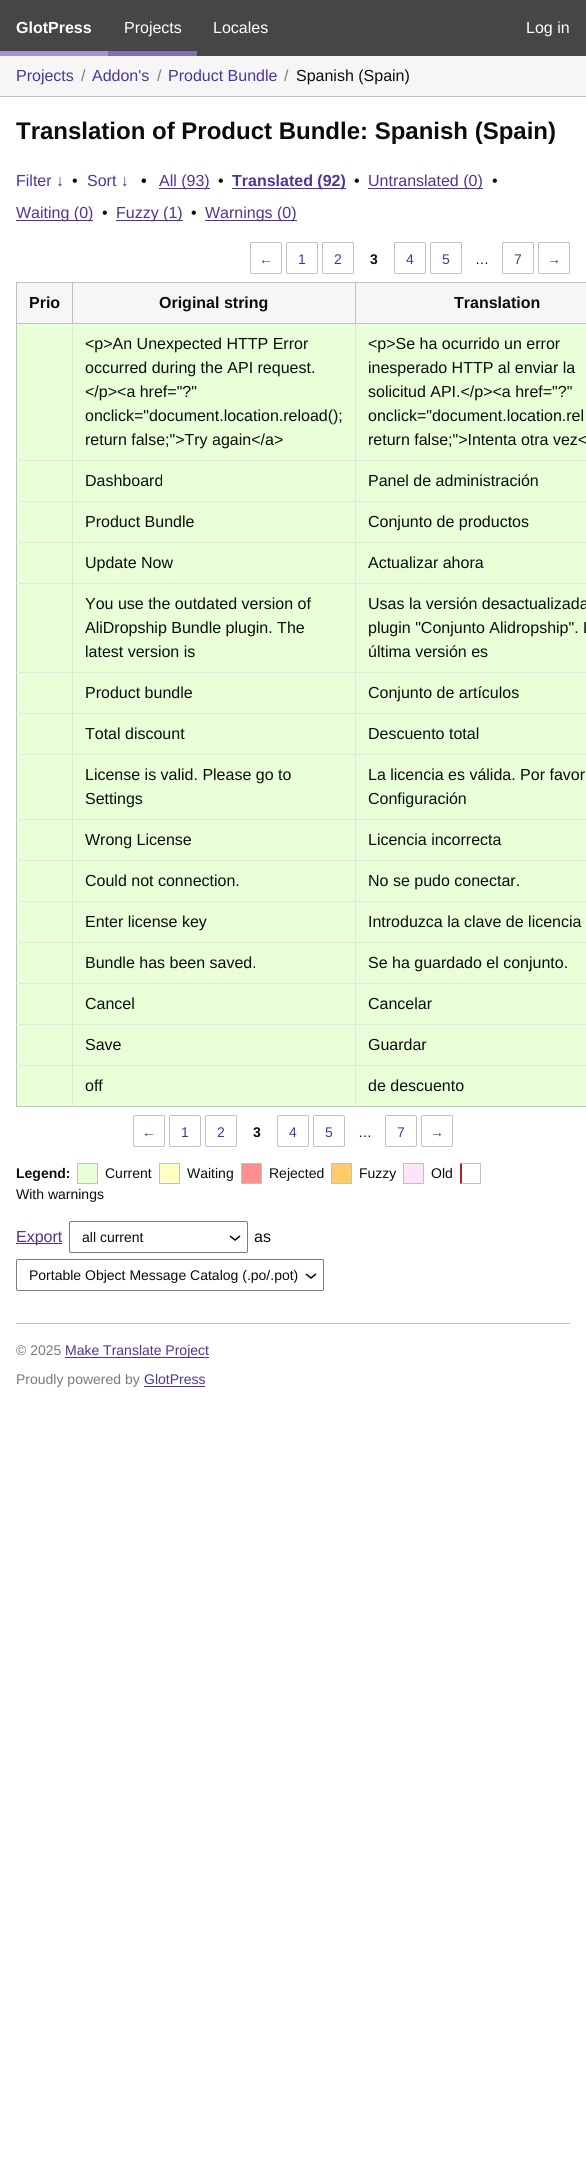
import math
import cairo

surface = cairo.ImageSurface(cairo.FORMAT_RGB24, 586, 2158)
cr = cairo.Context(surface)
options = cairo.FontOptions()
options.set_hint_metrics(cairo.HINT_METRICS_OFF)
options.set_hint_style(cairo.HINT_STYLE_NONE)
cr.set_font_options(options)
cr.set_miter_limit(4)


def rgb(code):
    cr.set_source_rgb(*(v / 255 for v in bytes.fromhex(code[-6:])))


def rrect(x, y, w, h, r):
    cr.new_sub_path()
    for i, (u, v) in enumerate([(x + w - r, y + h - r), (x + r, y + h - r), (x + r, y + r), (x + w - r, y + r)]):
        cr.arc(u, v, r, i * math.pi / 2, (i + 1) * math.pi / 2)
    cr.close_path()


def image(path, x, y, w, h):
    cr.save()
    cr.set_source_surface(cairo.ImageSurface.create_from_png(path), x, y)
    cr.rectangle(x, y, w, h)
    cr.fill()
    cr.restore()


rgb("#ffffff")
cr.paint()
for x, y, w, h, color in [
    (0, 0, 586, 56, "#464646"),
    (0, 51, 108, 5, "#a597c9"),
    (108, 51, 89, 5, "#826eb4"),
    (0, 56, 586, 40, "#f6f6f6"),
    (0, 96, 586, 1, "#c1c1c1"),
    (159, 188, 51, 1, "#4e3499"),
    (232, 188, 114, 1, "#4e3499"),
    (368, 188, 115, 1, "#4e3499"),
    (16, 220, 77, 1, "#4e3499"),
    (116, 220, 67, 1, "#4e3499"),
    (205, 220, 92, 1, "#4e3499"),
]:
    rgb(color)
    cr.rectangle(x, y, w, h)
    cr.fill()
rrect(250.5, 242.5, 31, 31, 1.5)
rgb("#c1c1c1")
cr.set_line_width(1)
cr.stroke()
rrect(286.5, 242.5, 31, 31, 1.5)
cr.stroke()
rrect(322.5, 242.5, 31, 31, 1.5)
cr.stroke()
rrect(394.5, 242.5, 31, 31, 1.5)
cr.stroke()
rrect(430.5, 242.5, 31, 31, 1.5)
cr.stroke()
rrect(502.5, 242.5, 31, 31, 1.5)
cr.stroke()
rrect(538.5, 242.5, 31, 31, 1.5)
cr.stroke()
for x, y, w, h, color in [
    (16, 282, 570, 1, "#c1c1c1"),
    (16, 1106, 570, 1, "#c1c1c1"),
    (16, 282, 1, 825, "#c1c1c1"),
    (17, 283, 55, 40, "#f6f6f6"),
    (17, 324, 569, 136, "#e9ffd8"),
    (355, 460, 231, 1, "#e4e4e4"),
    (17, 461, 569, 40, "#e9ffd8"),
    (355, 501, 231, 1, "#e4e4e4"),
    (17, 502, 569, 40, "#e9ffd8"),
    (355, 542, 231, 1, "#e4e4e4"),
    (17, 543, 569, 40, "#e9ffd8"),
    (355, 583, 231, 1, "#e4e4e4"),
    (17, 584, 569, 88, "#e9ffd8"),
    (355, 672, 231, 1, "#e4e4e4"),
    (17, 673, 569, 40, "#e9ffd8"),
    (355, 713, 231, 1, "#e4e4e4"),
    (17, 714, 569, 40, "#e9ffd8"),
    (355, 754, 231, 1, "#e4e4e4"),
    (17, 755, 569, 64, "#e9ffd8"),
    (355, 819, 231, 1, "#e4e4e4"),
    (17, 820, 569, 40, "#e9ffd8"),
    (355, 860, 231, 1, "#e4e4e4"),
    (17, 861, 569, 40, "#e9ffd8"),
    (355, 901, 231, 1, "#e4e4e4"),
    (17, 902, 569, 40, "#e9ffd8"),
    (355, 942, 231, 1, "#e4e4e4"),
    (17, 943, 569, 40, "#e9ffd8"),
    (355, 983, 231, 1, "#e4e4e4"),
    (17, 984, 569, 40, "#e9ffd8"),
    (355, 1024, 231, 1, "#e4e4e4"),
    (17, 1025, 569, 40, "#e9ffd8"),
    (355, 1065, 231, 1, "#e4e4e4"),
    (17, 1066, 569, 40, "#e9ffd8"),
    (355, 1065, 1, 42, "#e4e4e4"),
    (72, 1065, 284, 1, "#e4e4e4"),
    (355, 1024, 1, 42, "#e4e4e4"),
    (72, 1024, 284, 1, "#e4e4e4"),
    (355, 983, 1, 42, "#e4e4e4"),
    (72, 983, 284, 1, "#e4e4e4"),
    (355, 942, 1, 42, "#e4e4e4"),
    (72, 942, 284, 1, "#e4e4e4"),
    (355, 901, 1, 42, "#e4e4e4"),
    (72, 901, 284, 1, "#e4e4e4"),
    (355, 860, 1, 42, "#e4e4e4"),
    (72, 860, 284, 1, "#e4e4e4"),
    (355, 819, 1, 42, "#e4e4e4"),
    (72, 819, 284, 1, "#e4e4e4"),
    (355, 754, 1, 66, "#e4e4e4"),
    (72, 754, 284, 1, "#e4e4e4"),
    (355, 713, 1, 42, "#e4e4e4"),
    (72, 713, 284, 1, "#e4e4e4"),
    (355, 672, 1, 42, "#e4e4e4"),
    (72, 672, 284, 1, "#e4e4e4"),
    (355, 583, 1, 90, "#e4e4e4"),
    (72, 583, 284, 1, "#e4e4e4"),
    (355, 542, 1, 42, "#e4e4e4"),
    (72, 542, 284, 1, "#e4e4e4"),
    (355, 501, 1, 42, "#e4e4e4"),
    (72, 501, 284, 1, "#e4e4e4"),
    (355, 460, 1, 42, "#e4e4e4"),
    (72, 460, 284, 1, "#e4e4e4"),
    (355, 323, 1, 138, "#e4e4e4"),
    (355, 323, 231, 1, "#c1c1c1"),
    (355, 282, 1, 42, "#c1c1c1"),
    (72, 1065, 1, 42, "#e4e4e4"),
    (16, 1065, 57, 1, "#e4e4e4"),
    (72, 1024, 1, 42, "#e4e4e4"),
    (16, 1024, 57, 1, "#e4e4e4"),
    (72, 983, 1, 42, "#e4e4e4"),
    (16, 983, 57, 1, "#e4e4e4"),
    (72, 942, 1, 42, "#e4e4e4"),
    (16, 942, 57, 1, "#e4e4e4"),
    (72, 901, 1, 42, "#e4e4e4"),
    (16, 901, 57, 1, "#e4e4e4"),
    (72, 860, 1, 42, "#e4e4e4"),
    (16, 860, 57, 1, "#e4e4e4"),
    (72, 819, 1, 42, "#e4e4e4"),
    (16, 819, 57, 1, "#e4e4e4"),
    (72, 754, 1, 66, "#e4e4e4"),
    (16, 754, 57, 1, "#e4e4e4"),
    (72, 713, 1, 42, "#e4e4e4"),
    (16, 713, 57, 1, "#e4e4e4"),
    (72, 672, 1, 42, "#e4e4e4"),
    (16, 672, 57, 1, "#e4e4e4"),
    (72, 583, 1, 90, "#e4e4e4"),
    (16, 583, 57, 1, "#e4e4e4"),
    (72, 542, 1, 42, "#e4e4e4"),
    (16, 542, 57, 1, "#e4e4e4"),
    (72, 501, 1, 42, "#e4e4e4"),
    (16, 501, 57, 1, "#e4e4e4"),
    (72, 460, 1, 42, "#e4e4e4"),
    (16, 460, 57, 1, "#e4e4e4"),
    (72, 323, 1, 138, "#e4e4e4"),
    (72, 323, 284, 1, "#c1c1c1"),
    (72, 282, 1, 42, "#c1c1c1"),
    (16, 323, 57, 1, "#c1c1c1"),
    (73, 283, 282, 40, "#f6f6f6"),
    (356, 283, 230, 40, "#f6f6f6"),
]:
    rgb(color)
    cr.rectangle(x, y, w, h)
    cr.fill()
rrect(133.5, 1115.5, 31, 31, 1.5)
rgb("#c1c1c1")
cr.stroke()
rrect(169.5, 1115.5, 31, 31, 1.5)
cr.stroke()
rrect(205.5, 1115.5, 31, 31, 1.5)
cr.stroke()
rrect(277.5, 1115.5, 31, 31, 1.5)
cr.stroke()
rrect(313.5, 1115.5, 31, 31, 1.5)
cr.stroke()
rrect(385.5, 1115.5, 31, 31, 1.5)
cr.stroke()
rrect(421.5, 1115.5, 31, 31, 1.5)
cr.stroke()
rgb("#e9ffd8")
cr.rectangle(77.5, 1163.5, 20, 20)
cr.fill_preserve()
rgb("#c1c1c1")
cr.stroke()
rgb("#ffffc2")
cr.rectangle(159.5, 1163.5, 20, 20)
cr.fill_preserve()
rgb("#c1c1c1")
cr.stroke()
rgb("#ff8e8e")
cr.rectangle(241.5, 1163.5, 20, 20)
cr.fill_preserve()
rgb("#c1c1c1")
cr.stroke()
rgb("#ffcc66")
cr.rectangle(331.5, 1163.5, 20, 20)
cr.fill_preserve()
rgb("#c1c1c1")
cr.stroke()
rgb("#fee4f8")
cr.rectangle(403.5, 1163.5, 20, 20)
cr.fill_preserve()
rgb("#c1c1c1")
cr.stroke()
cr.new_path()
cr.move_to(460, 1163)
cr.line_to(481, 1163)
cr.line_to(480, 1164)
cr.line_to(462, 1164)
cr.close_path()
cr.fill()
cr.rectangle(480, 1163, 1, 21)
cr.fill()
cr.new_path()
cr.move_to(481, 1184)
cr.line_to(460, 1184)
cr.line_to(462, 1183)
cr.line_to(480, 1183)
cr.close_path()
cr.fill()
rgb("#a62626")
cr.new_path()
cr.move_to(460, 1184)
cr.line_to(460, 1163)
cr.line_to(462, 1164)
cr.line_to(462, 1183)
cr.close_path()
cr.fill()
rgb("#4e3499")
cr.rectangle(16, 1243, 46, 1)
cr.fill()
image("img/1.png", 229, 1235, 12, 6)
rrect(69.5, 1221.5, 178, 31, 1.5)
rgb("#7a7a7a")
cr.stroke()
image("img/1.png", 305, 1273, 12, 6)
rrect(16.5, 1259.5, 307, 31, 1.5)
cr.stroke()
for x, y, w, h, color in [
    (16, 1323, 554, 1, "#c1c1c1"),
    (65, 1357, 144, 1, "#4e3499"),
    (144, 1386, 61, 1, "#4e3499"),
]:
    rgb(color)
    cr.rectangle(x, y, w, h)
    cr.fill()
cr.select_font_face("Liberation Sans", cairo.FONT_SLANT_NORMAL, cairo.FONT_WEIGHT_BOLD)
cr.set_font_size(16)
rgb("#ffffff")
cr.move_to(16, 33)
cr.show_text("GlotPress")
cr.select_font_face("Liberation Sans")
for x, y, s in [
    (124, 33, "Projects"),
    (213, 33, "Locales"),
    (526, 33, "Log in"),
]:
    cr.move_to(x, y)
    cr.show_text(s)
rgb("#4e3499")
cr.move_to(16, 81)
cr.show_text("Projects")
rgb("#7a7a7a")
cr.move_to(81, 81)
cr.show_text("/")
rgb("#4e3499")
cr.move_to(92, 81)
cr.show_text("Addon's")
rgb("#7a7a7a")
cr.move_to(157, 81)
cr.show_text("/")
rgb("#4e3499")
cr.move_to(168, 81)
cr.show_text("Product Bundle")
rgb("#7a7a7a")
cr.move_to(284, 81)
cr.show_text("/")
rgb("#0b0c0c")
cr.move_to(296, 81)
cr.show_text("Spanish (Spain)")
cr.select_font_face("Liberation Sans", cairo.FONT_SLANT_NORMAL, cairo.FONT_WEIGHT_BOLD)
cr.set_font_size(24)
cr.move_to(16, 139)
cr.show_text("Translation of Product Bundle: Spanish (Spain)")
cr.select_font_face("Liberation Sans")
cr.set_font_size(16)
rgb("#4e3499")
cr.move_to(16, 186)
cr.show_text("Filter ↓")
rgb("#0b0c0c")
cr.move_to(72, 186)
cr.show_text("•")
rgb("#4e3499")
cr.move_to(87, 186)
cr.show_text("Sort ↓")
cr.select_font_face("Liberation Sans", cairo.FONT_SLANT_NORMAL, cairo.FONT_WEIGHT_BOLD)
rgb("#0b0c0c")
cr.move_to(141, 186)
cr.show_text("•")
cr.select_font_face("Liberation Sans")
rgb("#4e3499")
cr.move_to(159, 186)
cr.show_text("All (93)")
rgb("#0b0c0c")
cr.move_to(218, 186)
cr.show_text("•")
cr.select_font_face("Liberation Sans", cairo.FONT_SLANT_NORMAL, cairo.FONT_WEIGHT_BOLD)
rgb("#4e3499")
cr.move_to(232, 186)
cr.show_text("Translated (92)")
cr.select_font_face("Liberation Sans")
rgb("#0b0c0c")
cr.move_to(354, 186)
cr.show_text("•")
rgb("#4e3499")
cr.move_to(368, 186)
cr.show_text("Untranslated (0)")
rgb("#0b0c0c")
cr.move_to(492, 186)
cr.show_text("•")
rgb("#4e3499")
cr.move_to(16, 218)
cr.show_text("Waiting (0)")
rgb("#0b0c0c")
cr.move_to(102, 218)
cr.show_text("•")
rgb("#4e3499")
cr.move_to(116, 218)
cr.show_text("Fuzzy (1)")
rgb("#0b0c0c")
cr.move_to(191, 218)
cr.show_text("•")
rgb("#4e3499")
cr.move_to(205, 218)
cr.show_text("Warnings (0)")
cr.set_font_size(14)
for x, y, s in [
    (259, 264, "←"),
    (298, 264, "1"),
    (334, 264, "2"),
]:
    cr.move_to(x, y)
    cr.show_text(s)
cr.select_font_face("Liberation Sans", cairo.FONT_SLANT_NORMAL, cairo.FONT_WEIGHT_BOLD)
rgb("#0b0c0c")
cr.move_to(370, 264)
cr.show_text("3")
cr.select_font_face("Liberation Sans")
rgb("#4e3499")
cr.move_to(406, 264)
cr.show_text("4")
cr.move_to(442, 264)
cr.show_text("5")
rgb("#0b0c0c")
cr.move_to(475, 264)
cr.show_text("…")
rgb("#4e3499")
cr.move_to(514, 264)
cr.show_text("7")
cr.move_to(547, 264)
cr.show_text("→")
cr.select_font_face("Liberation Sans", cairo.FONT_SLANT_NORMAL, cairo.FONT_WEIGHT_BOLD)
cr.set_font_size(16)
rgb("#0b0c0c")
for x, y, s in [
    (29, 308, "Prio"),
    (159, 308, "Original string"),
    (454, 308, "Translation"),
]:
    cr.move_to(x, y)
    cr.show_text(s)
cr.select_font_face("Liberation Sans")
for x, y, s in [
    (85, 349, "<p>An Unexpected HTTP Error"),
    (85, 373, "occurred during the API request."),
    (85, 397, "</p><a href=\"?\""),
    (85, 421, "onclick=\"document.location.reload();"),
    (85, 445, "return false;\">Try again</a>"),
    (368, 349, "<p>Se ha ocurrido un error"),
    (368, 373, "inesperado HTTP al enviar la"),
    (368, 397, "solicitud API.</p><a href=\"?\""),
    (368, 421, "onclick=\"document.location.rel"),
    (368, 445, "return false;\">Intenta otra vez<"),
    (85, 486, "Dashboard"),
    (368, 486, "Panel de administración"),
    (85, 527, "Product Bundle"),
    (368, 527, "Conjunto de productos"),
    (85, 568, "Update Now"),
    (368, 568, "Actualizar ahora"),
    (85, 609, "You use the outdated version of"),
    (85, 633, "AliDropship Bundle plugin. The"),
    (85, 657, "latest version is"),
    (368, 609, "Usas la versión desactualizada"),
    (368, 633, "plugin \"Conjunto Alidropship\". L"),
    (368, 657, "última versión es"),
    (85, 698, "Product bundle"),
    (368, 698, "Conjunto de artículos"),
    (85, 739, "Total discount"),
    (368, 739, "Descuento total"),
    (85, 780, "License is valid. Please go to"),
    (85, 804, "Settings"),
    (368, 780, "La licencia es válida. Por favor"),
    (368, 804, "Configuración"),
    (85, 845, "Wrong License"),
    (368, 845, "Licencia incorrecta"),
    (85, 886, "Could not connection."),
    (368, 886, "No se pudo conectar."),
    (85, 927, "Enter license key"),
    (368, 927, "Introduzca la clave de licencia"),
    (85, 968, "Bundle has been saved."),
    (368, 968, "Se ha guardado el conjunto."),
    (85, 1009, "Cancel"),
    (368, 1009, "Cancelar"),
    (85, 1050, "Save"),
    (368, 1050, "Guardar"),
    (85, 1091, "off"),
    (368, 1091, "de descuento"),
]:
    cr.move_to(x, y)
    cr.show_text(s)
cr.set_font_size(14)
rgb("#4e3499")
for x, y, s in [
    (142, 1137, "←"),
    (181, 1137, "1"),
    (217, 1137, "2"),
]:
    cr.move_to(x, y)
    cr.show_text(s)
cr.select_font_face("Liberation Sans", cairo.FONT_SLANT_NORMAL, cairo.FONT_WEIGHT_BOLD)
rgb("#0b0c0c")
cr.move_to(253, 1137)
cr.show_text("3")
cr.select_font_face("Liberation Sans")
rgb("#4e3499")
cr.move_to(289, 1137)
cr.show_text("4")
cr.move_to(325, 1137)
cr.show_text("5")
rgb("#0b0c0c")
cr.move_to(358, 1137)
cr.show_text("…")
rgb("#4e3499")
cr.move_to(397, 1137)
cr.show_text("7")
cr.move_to(430, 1137)
cr.show_text("→")
cr.select_font_face("Liberation Sans", cairo.FONT_SLANT_NORMAL, cairo.FONT_WEIGHT_BOLD)
rgb("#0b0c0c")
cr.move_to(16, 1178)
cr.show_text("Legend:")
cr.select_font_face("Liberation Sans")
for x, y, s in [
    (105, 1178, "Current"),
    (187, 1178, "Waiting"),
    (269, 1178, "Rejected"),
    (359, 1178, "Fuzzy"),
    (431, 1178, "Old"),
    (16, 1199, "With warnings"),
]:
    cr.move_to(x, y)
    cr.show_text(s)
cr.set_font_size(16)
rgb("#4e3499")
cr.move_to(16, 1242)
cr.show_text("Export")
cr.set_font_size(14)
rgb("#0b0c0c")
cr.move_to(82, 1242)
cr.show_text("all current")
cr.set_font_size(16)
cr.move_to(254, 1242)
cr.show_text("as")
cr.set_font_size(14)
cr.move_to(29, 1280)
cr.show_text("Portable Object Message Catalog (.po/.pot)")
rgb("#7a7a7a")
cr.move_to(16, 1355)
cr.show_text("© 2025")
rgb("#4e3499")
cr.move_to(65, 1355)
cr.show_text("Make Translate Project")
rgb("#7a7a7a")
cr.move_to(16, 1384)
cr.show_text("Proudly powered by")
rgb("#4e3499")
cr.move_to(144, 1384)
cr.show_text("GlotPress")
surface.write_to_png("page.png")
